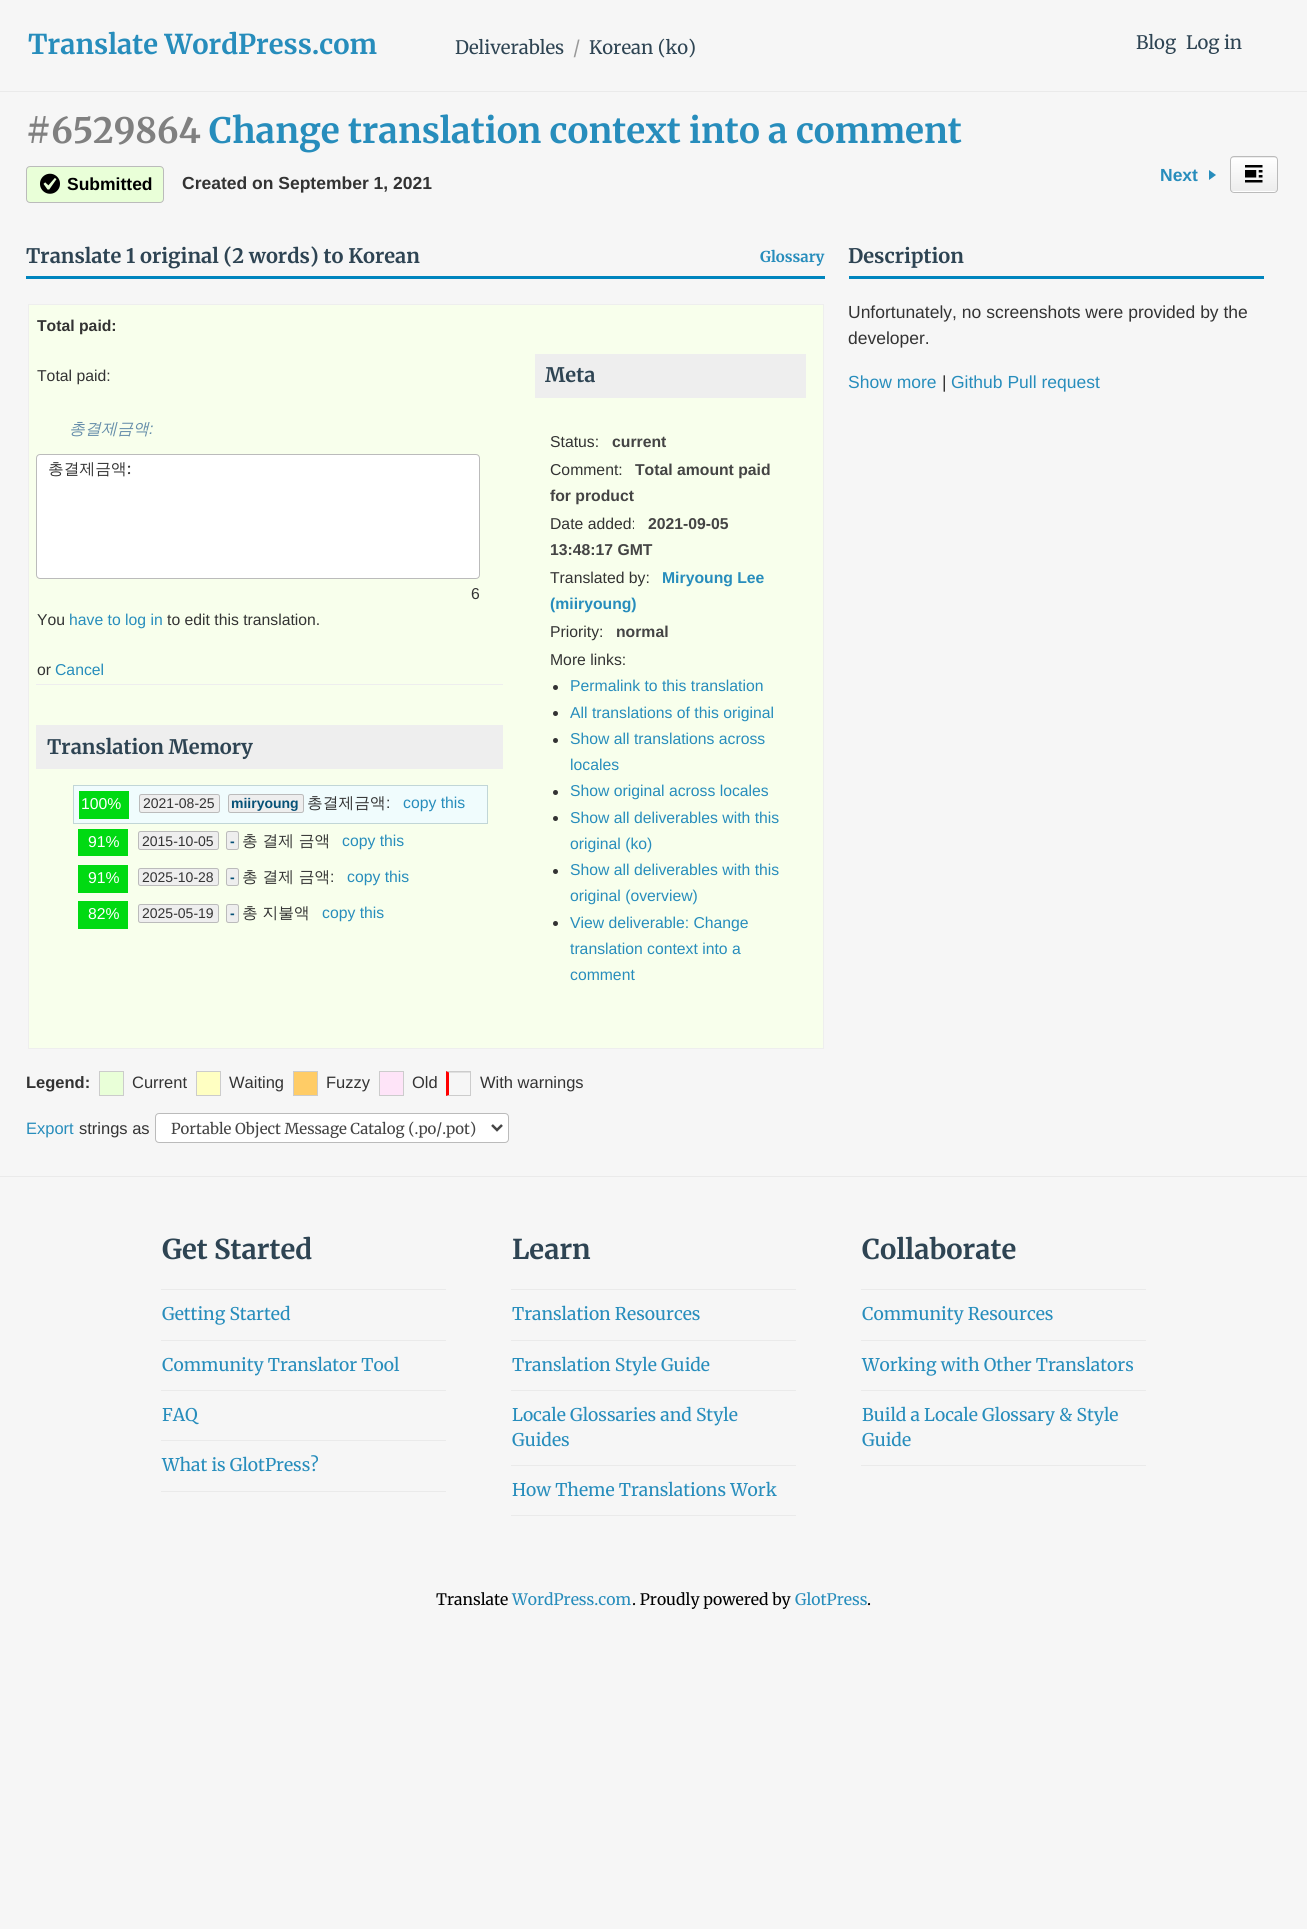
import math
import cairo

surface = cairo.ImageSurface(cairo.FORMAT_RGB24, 1307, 1929)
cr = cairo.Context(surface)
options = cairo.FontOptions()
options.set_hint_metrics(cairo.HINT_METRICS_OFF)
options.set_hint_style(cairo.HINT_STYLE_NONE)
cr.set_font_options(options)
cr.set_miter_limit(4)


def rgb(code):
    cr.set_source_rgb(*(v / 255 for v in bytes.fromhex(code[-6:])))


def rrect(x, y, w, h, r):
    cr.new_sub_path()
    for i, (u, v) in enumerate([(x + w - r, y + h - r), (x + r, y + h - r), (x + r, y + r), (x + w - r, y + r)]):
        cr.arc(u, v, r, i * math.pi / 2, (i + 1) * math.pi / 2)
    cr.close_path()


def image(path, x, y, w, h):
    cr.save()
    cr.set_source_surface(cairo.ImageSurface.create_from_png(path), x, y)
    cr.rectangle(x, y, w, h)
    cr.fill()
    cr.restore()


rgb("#f6f6f6")
cr.paint()
rgb("#eaeaea")
cr.rectangle(0, 91, 1307, 1)
cr.fill()
rgb("#e9ffd8")
rrect(26.5, 166.5, 137, 36, 3.5)
cr.fill_preserve()
rgb("#bbbbbb")
cr.set_line_width(1)
cr.stroke()
image("img/1.png", 40, 173, 20, 21)
rgb("#278dbc")
cr.new_path()
cr.move_to(1209, 170)
cr.line_to(1216, 175)
cr.line_to(1209, 180)
cr.close_path()
cr.fill()
cr.save()
rrect(1230, 156, 48, 37, 4)
cr.clip()
gradient = cairo.LinearGradient(1254, 158, 1254, 124)
gradient.add_color_stop_rgba(0, 0.929, 0.929, 0.929, 1)
gradient.add_color_stop_rgba(1, 1, 1, 1, 1)
cr.set_source(gradient)
cr.rectangle(1230, 156, 48, 2)
cr.fill()
gradient = cairo.LinearGradient(1254, 191, 1254, 158)
gradient.add_color_stop_rgba(0, 0.929, 0.929, 0.929, 1)
gradient.add_color_stop_rgba(1, 1, 1, 1, 1)
cr.set_source(gradient)
cr.rectangle(1230, 158, 48, 33)
cr.fill()
gradient = cairo.LinearGradient(1254, 225, 1254, 191)
gradient.add_color_stop_rgba(0, 0.929, 0.929, 0.929, 1)
gradient.add_color_stop_rgba(1, 1, 1, 1, 1)
cr.set_source(gradient)
cr.rectangle(1230, 191, 48, 2)
cr.fill()
cr.restore()
rrect(1230.5, 156.5, 47, 36, 3.5)
rgb("#bbbbbb")
cr.stroke()
image("img/2.png", 1245, 165, 18, 18)
rgb("#0085be")
cr.rectangle(26, 276, 799, 3)
cr.fill()
rgb("#f8ffec")
cr.rectangle(28.5, 304.5, 795, 744)
cr.fill_preserve()
rgb("#eeeeee")
cr.stroke()
rgb("#ffffff")
rrect(36.5, 454.5, 443, 124, 3.5)
cr.fill_preserve()
rgb("#bbbbbb")
cr.stroke()
rgb("#eeeeee")
cr.rectangle(36, 684, 467, 1)
cr.fill()
cr.rectangle(36, 725, 467, 44)
cr.fill()
rgb("#f0fcfd")
cr.rectangle(73.5, 785.5, 414, 38)
cr.fill_preserve()
rgb("#c1d6d7")
cr.stroke()
rgb("#00da12")
cr.rectangle(79, 791, 50, 28)
cr.fill()
rgb("#eeeeee")
rrect(139.5, 794.5, 80, 18, 2)
cr.fill_preserve()
rgb("#bbbbbb")
cr.stroke()
rgb("#eeeeee")
rrect(228.5, 794.5, 75, 18, 2)
cr.fill_preserve()
rgb("#bbbbbb")
cr.stroke()
rgb("#00da12")
cr.rectangle(78, 829, 50, 27)
cr.fill()
rgb("#eeeeee")
rrect(138.5, 831.5, 80, 18, 2)
cr.fill_preserve()
rgb("#bbbbbb")
cr.stroke()
rgb("#eeeeee")
rrect(226.5, 831.5, 12, 18, 2)
cr.fill_preserve()
rgb("#bbbbbb")
cr.stroke()
rgb("#00da12")
cr.rectangle(78, 865, 50, 28)
cr.fill()
rgb("#eeeeee")
rrect(138.5, 868.5, 80, 17, 2)
cr.fill_preserve()
rgb("#bbbbbb")
cr.stroke()
rgb("#eeeeee")
rrect(226.5, 868.5, 12, 17, 2)
cr.fill_preserve()
rgb("#bbbbbb")
cr.stroke()
rgb("#00da12")
cr.rectangle(78, 901, 50, 28)
cr.fill()
rgb("#eeeeee")
rrect(138.5, 904.5, 80, 18, 2)
cr.fill_preserve()
rgb("#bbbbbb")
cr.stroke()
rgb("#eeeeee")
rrect(226.5, 904.5, 12, 18, 2)
cr.fill_preserve()
rgb("#bbbbbb")
cr.stroke()
rgb("#eeeeee")
cr.rectangle(535, 354, 271, 44)
cr.fill()
rgb("#333333")
cr.arc(555.5, 687.5, 2.5, 0, 2 * math.pi)
cr.fill()
cr.arc(555.5, 713.5, 2.5, 0, 2 * math.pi)
cr.fill()
cr.arc(555.5, 740.5, 2.5, 0, 2 * math.pi)
cr.fill()
cr.arc(555.5, 792.5, 2.5, 0, 2 * math.pi)
cr.fill()
cr.arc(555.5, 818.5, 2.5, 0, 2 * math.pi)
cr.fill()
cr.arc(555.5, 871.5, 2.5, 0, 2 * math.pi)
cr.fill()
cr.arc(555.5, 923.5, 2.5, 0, 2 * math.pi)
cr.fill()
rgb("#e9ffd8")
cr.rectangle(99.5, 1071.5, 24, 24)
cr.fill_preserve()
rgb("#cccccc")
cr.stroke()
rgb("#ffffc2")
cr.rectangle(196.5, 1071.5, 24, 24)
cr.fill_preserve()
rgb("#cccccc")
cr.stroke()
rgb("#ffcc66")
cr.rectangle(293.5, 1071.5, 24, 24)
cr.fill_preserve()
rgb("#cccccc")
cr.stroke()
rgb("#fee4f8")
cr.rectangle(379.5, 1071.5, 24, 24)
cr.fill_preserve()
rgb("#cccccc")
cr.stroke()
cr.new_path()
cr.move_to(446, 1071)
cr.line_to(471, 1071)
cr.line_to(470, 1072.5)
cr.line_to(449, 1072.5)
cr.close_path()
cr.fill()
cr.rectangle(470, 1071, 1, 25)
cr.fill()
cr.new_path()
cr.move_to(471, 1096)
cr.line_to(446, 1096)
cr.line_to(449, 1095)
cr.line_to(470, 1095)
cr.close_path()
cr.fill()
rgb("#ff0000")
cr.new_path()
cr.move_to(446, 1096)
cr.line_to(446, 1071)
cr.line_to(449, 1072.5)
cr.line_to(449, 1095)
cr.close_path()
cr.fill()
rgb("#ffffff")
rrect(155.5, 1113.5, 353, 29, 3.5)
cr.fill_preserve()
rgb("#bbbbbb")
cr.stroke()
cr.new_path()
cr.move_to(492, 1125)
cr.line_to(497, 1130)
cr.line_to(502, 1125)
rgb("#464646")
cr.set_line_width(2.5)
cr.stroke()
for x, y, w, h, color in [
    (849, 276, 415, 3, "#0085be"),
    (0, 1176, 1307, 1, "#eaeaea"),
    (161, 1491, 285, 1, "#eaeaea"),
    (161, 1289, 285, 1, "#eaeaea"),
    (161, 1340, 285, 1, "#eaeaea"),
    (161, 1390, 285, 1, "#eaeaea"),
    (161, 1440, 285, 1, "#eaeaea"),
    (511, 1515, 285, 1, "#eaeaea"),
    (511, 1289, 285, 1, "#eaeaea"),
    (511, 1340, 285, 1, "#eaeaea"),
    (511, 1390, 285, 1, "#eaeaea"),
    (511, 1465, 285, 1, "#eaeaea"),
    (861, 1465, 285, 1, "#eaeaea"),
    (861, 1289, 285, 1, "#eaeaea"),
    (861, 1340, 285, 1, "#eaeaea"),
    (861, 1390, 285, 1, "#eaeaea"),
]:
    rgb(color)
    cr.rectangle(x, y, w, h)
    cr.fill()
cr.select_font_face("Merriweather", cairo.FONT_SLANT_NORMAL, cairo.FONT_WEIGHT_BOLD)
cr.set_font_size(27.3)
rgb("#278dbc")
cr.move_to(28, 54)
cr.show_text("Translate WordPress.com")
cr.select_font_face("Merriweather")
cr.set_font_size(18.5)
rgb("#2e4453")
cr.move_to(455, 54)
cr.show_text("Deliverables")
rgb("#999999")
cr.move_to(573, 54)
cr.show_text("/")
rgb("#2e4453")
for x, y, s in [
    (589, 54, "Korean (ko)"),
    (1136, 49, "Blog"),
    (1186, 49, "Log in"),
]:
    cr.move_to(x, y)
    cr.show_text(s)
cr.select_font_face("Merriweather", cairo.FONT_SLANT_NORMAL, cairo.FONT_WEIGHT_BOLD)
cr.set_font_size(35)
rgb("#808080")
cr.move_to(26, 143)
cr.show_text("#6529864")
rgb("#278dbc")
cr.move_to(209, 143)
cr.show_text("Change translation context into a comment")
cr.select_font_face("Liberation Sans", cairo.FONT_SLANT_NORMAL, cairo.FONT_WEIGHT_BOLD)
cr.set_font_size(17.5)
rgb("#000000")
cr.move_to(67, 190)
cr.show_text("Submitted")
rgb("#333333")
cr.move_to(182, 189)
cr.show_text("Created on September 1, 2021")
rgb("#278dbc")
cr.move_to(1160, 181)
cr.show_text("Next")
cr.select_font_face("Merriweather", cairo.FONT_SLANT_NORMAL, cairo.FONT_WEIGHT_BOLD)
cr.set_font_size(20)
rgb("#2e4453")
cr.move_to(26, 263)
cr.show_text("Translate 1 original (2 words) to Korean")
cr.set_font_size(15)
rgb("#278dbc")
cr.move_to(760, 262)
cr.show_text("Glossary")
cr.select_font_face("Liberation Sans", cairo.FONT_SLANT_NORMAL, cairo.FONT_WEIGHT_BOLD)
cr.set_font_size(15.75)
rgb("#333333")
cr.move_to(37, 331)
cr.show_text("Total paid:")
cr.select_font_face("Liberation Sans")
cr.move_to(37, 381)
cr.show_text("Total paid:")
cr.select_font_face("WenQuanYi Zen Hei Medium", cairo.FONT_SLANT_ITALIC)
cr.set_font_size(16)
rgb("#668eaa")
cr.move_to(69, 434)
cr.show_text("총결제금액")
cr.select_font_face("Liberation Sans", cairo.FONT_SLANT_ITALIC)
cr.move_to(149, 434)
cr.show_text(":")
cr.select_font_face("WenQuanYi Zen Hei Medium")
cr.set_font_size(15.75)
rgb("#333333")
cr.move_to(48, 474)
cr.show_text("총결제금액")
cr.select_font_face("Merriweather")
cr.move_to(127, 474)
cr.show_text(":")
cr.select_font_face("Liberation Sans")
cr.move_to(471, 599)
cr.show_text("6")
cr.move_to(37, 625)
cr.show_text("You")
rgb("#278dbc")
cr.move_to(69, 625)
cr.show_text("have to log in")
rgb("#333333")
cr.move_to(167, 625)
cr.show_text("to edit this translation.")
cr.move_to(37, 675)
cr.show_text("or")
rgb("#278dbc")
cr.move_to(55, 675)
cr.show_text("Cancel")
cr.select_font_face("Merriweather", cairo.FONT_SLANT_NORMAL, cairo.FONT_WEIGHT_BOLD)
cr.set_font_size(20)
rgb("#2e4453")
cr.move_to(47, 754)
cr.show_text("Translation Memory")
cr.select_font_face("Liberation Sans")
cr.set_font_size(15.75)
rgb("#ffffff")
cr.move_to(81, 809)
cr.show_text("100%")
cr.set_font_size(14)
rgb("#333333")
cr.move_to(143, 808)
cr.show_text("2021-08-25")
cr.select_font_face("Liberation Sans", cairo.FONT_SLANT_NORMAL, cairo.FONT_WEIGHT_BOLD)
rgb("#065177")
cr.move_to(231, 808)
cr.show_text("miiryoung")
cr.select_font_face("WenQuanYi Zen Hei Medium")
cr.set_font_size(15.75)
rgb("#333333")
cr.move_to(307, 808)
cr.show_text("총결제금액")
cr.select_font_face("Liberation Sans")
cr.move_to(386, 808)
cr.show_text(":")
rgb("#278dbc")
cr.move_to(403, 808)
cr.show_text("copy this")
rgb("#ffffff")
cr.move_to(88, 847)
cr.show_text("91%")
cr.set_font_size(14)
rgb("#333333")
cr.move_to(142, 846)
cr.show_text("2015-10-05")
cr.select_font_face("Liberation Sans", cairo.FONT_SLANT_NORMAL, cairo.FONT_WEIGHT_BOLD)
rgb("#065177")
cr.move_to(230, 846)
cr.show_text("-")
cr.select_font_face("WenQuanYi Zen Hei Medium")
cr.set_font_size(15.75)
rgb("#333333")
cr.move_to(242, 846)
cr.show_text("총 결제 금액")
cr.select_font_face("Liberation Sans")
rgb("#278dbc")
cr.move_to(342, 846)
cr.show_text("copy this")
rgb("#ffffff")
cr.move_to(88, 883)
cr.show_text("91%")
cr.set_font_size(14)
rgb("#333333")
cr.move_to(142, 882)
cr.show_text("2025-10-28")
cr.select_font_face("Liberation Sans", cairo.FONT_SLANT_NORMAL, cairo.FONT_WEIGHT_BOLD)
rgb("#065177")
cr.move_to(230, 882)
cr.show_text("-")
cr.select_font_face("WenQuanYi Zen Hei Medium")
cr.set_font_size(15.75)
rgb("#333333")
cr.move_to(242, 882)
cr.show_text("총 결제 금액")
cr.select_font_face("Liberation Sans")
cr.move_to(330, 882)
cr.show_text(":")
rgb("#278dbc")
cr.move_to(347, 882)
cr.show_text("copy this")
rgb("#ffffff")
cr.move_to(88, 919)
cr.show_text("82%")
cr.set_font_size(14)
rgb("#333333")
cr.move_to(142, 918)
cr.show_text("2025-05-19")
cr.select_font_face("Liberation Sans", cairo.FONT_SLANT_NORMAL, cairo.FONT_WEIGHT_BOLD)
rgb("#065177")
cr.move_to(230, 918)
cr.show_text("-")
cr.select_font_face("WenQuanYi Zen Hei Medium")
cr.set_font_size(15.75)
rgb("#333333")
cr.move_to(242, 918)
cr.show_text("총 지불액")
cr.select_font_face("Liberation Sans")
rgb("#278dbc")
cr.move_to(322, 918)
cr.show_text("copy this")
cr.select_font_face("Merriweather", cairo.FONT_SLANT_NORMAL, cairo.FONT_WEIGHT_BOLD)
cr.set_font_size(20)
rgb("#2e4453")
cr.move_to(545, 382)
cr.show_text("Meta")
cr.select_font_face("Liberation Sans")
cr.set_font_size(15.75)
rgb("#333333")
cr.move_to(550, 447)
cr.show_text("Status:")
cr.select_font_face("Liberation Sans", cairo.FONT_SLANT_NORMAL, cairo.FONT_WEIGHT_BOLD)
rgb("#444444")
cr.move_to(612, 447)
cr.show_text("current")
cr.select_font_face("Liberation Sans")
rgb("#333333")
cr.move_to(550, 475)
cr.show_text("Comment:")
cr.select_font_face("Liberation Sans", cairo.FONT_SLANT_NORMAL, cairo.FONT_WEIGHT_BOLD)
rgb("#444444")
cr.move_to(635, 475)
cr.show_text("Total amount paid")
cr.move_to(550, 501)
cr.show_text("for product")
cr.select_font_face("Liberation Sans")
rgb("#333333")
cr.move_to(550, 529)
cr.show_text("Date added:")
cr.select_font_face("Liberation Sans", cairo.FONT_SLANT_NORMAL, cairo.FONT_WEIGHT_BOLD)
rgb("#444444")
cr.move_to(648, 529)
cr.show_text("2021-09-05")
cr.move_to(550, 555)
cr.show_text("13:48:17 GMT")
cr.select_font_face("Liberation Sans")
rgb("#333333")
cr.move_to(550, 583)
cr.show_text("Translated by:")
cr.select_font_face("Liberation Sans", cairo.FONT_SLANT_NORMAL, cairo.FONT_WEIGHT_BOLD)
rgb("#278dbc")
cr.move_to(662, 583)
cr.show_text("Miryoung Lee")
cr.move_to(550, 609)
cr.show_text("(miiryoung)")
cr.select_font_face("Liberation Sans")
rgb("#333333")
cr.move_to(550, 637)
cr.show_text("Priority:")
cr.select_font_face("Liberation Sans", cairo.FONT_SLANT_NORMAL, cairo.FONT_WEIGHT_BOLD)
rgb("#444444")
cr.move_to(616, 637)
cr.show_text("normal")
cr.select_font_face("Liberation Sans")
rgb("#333333")
cr.move_to(550, 665)
cr.show_text("More links:")
rgb("#278dbc")
for x, y, s in [
    (570, 691, "Permalink to this translation"),
    (570, 718, "All translations of this original"),
    (570, 744, "Show all translations across"),
    (570, 770, "locales"),
    (570, 796, "Show original across locales"),
    (570, 823, "Show all deliverables with this"),
    (570, 849, "original (ko)"),
    (570, 875, "Show all deliverables with this"),
    (570, 901, "original (overview)"),
    (570, 928, "View deliverable: Change"),
    (570, 954, "translation context into a"),
    (570, 980, "comment"),
]:
    cr.move_to(x, y)
    cr.show_text(s)
cr.select_font_face("Liberation Sans", cairo.FONT_SLANT_NORMAL, cairo.FONT_WEIGHT_BOLD)
cr.set_font_size(16.5)
rgb("#333333")
cr.move_to(26, 1088)
cr.show_text("Legend:")
cr.select_font_face("Liberation Sans")
for x, y, s in [
    (132, 1088, "Current"),
    (229, 1088, "Waiting"),
    (326, 1088, "Fuzzy"),
    (412, 1088, "Old"),
    (480, 1088, "With warnings"),
]:
    cr.move_to(x, y)
    cr.show_text(s)
rgb("#278dbc")
cr.move_to(26, 1134)
cr.show_text("Export")
rgb("#333333")
cr.move_to(79, 1134)
cr.show_text("strings as")
cr.select_font_face("Merriweather")
cr.set_font_size(15)
rgb("#444444")
cr.move_to(171, 1134)
cr.show_text("Portable Object Message Catalog (.po/.pot)")
cr.select_font_face("Merriweather", cairo.FONT_SLANT_NORMAL, cairo.FONT_WEIGHT_BOLD)
cr.set_font_size(20)
rgb("#2e4453")
cr.move_to(848, 263)
cr.show_text("Description")
cr.select_font_face("Liberation Sans")
cr.set_font_size(17.5)
rgb("#333333")
cr.move_to(848, 318)
cr.show_text("Unfortunately, no screenshots were provided by the")
cr.move_to(848, 344)
cr.show_text("developer.")
rgb("#278dbc")
cr.move_to(848, 388)
cr.show_text("Show more")
rgb("#333333")
cr.move_to(942, 388)
cr.show_text("|")
rgb("#278dbc")
cr.move_to(951, 388)
cr.show_text("Github Pull request")
cr.select_font_face("Merriweather", cairo.FONT_SLANT_NORMAL, cairo.FONT_WEIGHT_BOLD)
cr.set_font_size(27.3)
rgb("#2e4453")
cr.move_to(162, 1259)
cr.show_text("Get Started")
cr.select_font_face("Merriweather")
cr.set_font_size(17.5)
rgb("#278dbc")
for x, y, s in [
    (162, 1320, "Getting Started"),
    (162, 1371, "Community Translator Tool"),
    (162, 1421, "FAQ"),
    (162, 1471, "What is GlotPress?"),
]:
    cr.move_to(x, y)
    cr.show_text(s)
cr.select_font_face("Merriweather", cairo.FONT_SLANT_NORMAL, cairo.FONT_WEIGHT_BOLD)
cr.set_font_size(27.3)
rgb("#2e4453")
cr.move_to(512, 1259)
cr.show_text("Learn")
cr.select_font_face("Merriweather")
cr.set_font_size(17.5)
rgb("#278dbc")
for x, y, s in [
    (512, 1320, "Translation Resources"),
    (512, 1371, "Translation Style Guide"),
    (512, 1421, "Locale Glossaries and Style"),
    (512, 1446, "Guides"),
    (512, 1496, "How Theme Translations Work"),
]:
    cr.move_to(x, y)
    cr.show_text(s)
cr.select_font_face("Merriweather", cairo.FONT_SLANT_NORMAL, cairo.FONT_WEIGHT_BOLD)
cr.set_font_size(27.3)
rgb("#2e4453")
cr.move_to(862, 1259)
cr.show_text("Collaborate")
cr.select_font_face("Merriweather")
cr.set_font_size(17.5)
rgb("#278dbc")
for x, y, s in [
    (862, 1320, "Community Resources"),
    (862, 1371, "Working with Other Translators"),
    (862, 1421, "Build a Locale Glossary & Style"),
    (862, 1446, "Guide"),
]:
    cr.move_to(x, y)
    cr.show_text(s)
cr.set_font_size(15.75)
rgb("#000000")
cr.move_to(436, 1605)
cr.show_text("Translate")
rgb("#278dbc")
cr.move_to(512, 1605)
cr.show_text("WordPress.com")
rgb("#000000")
cr.move_to(632, 1605)
cr.show_text(". Proudly powered by")
rgb("#278dbc")
cr.move_to(795, 1605)
cr.show_text("GlotPress")
rgb("#000000")
cr.move_to(867, 1605)
cr.show_text(".")
surface.write_to_png("page.png")
